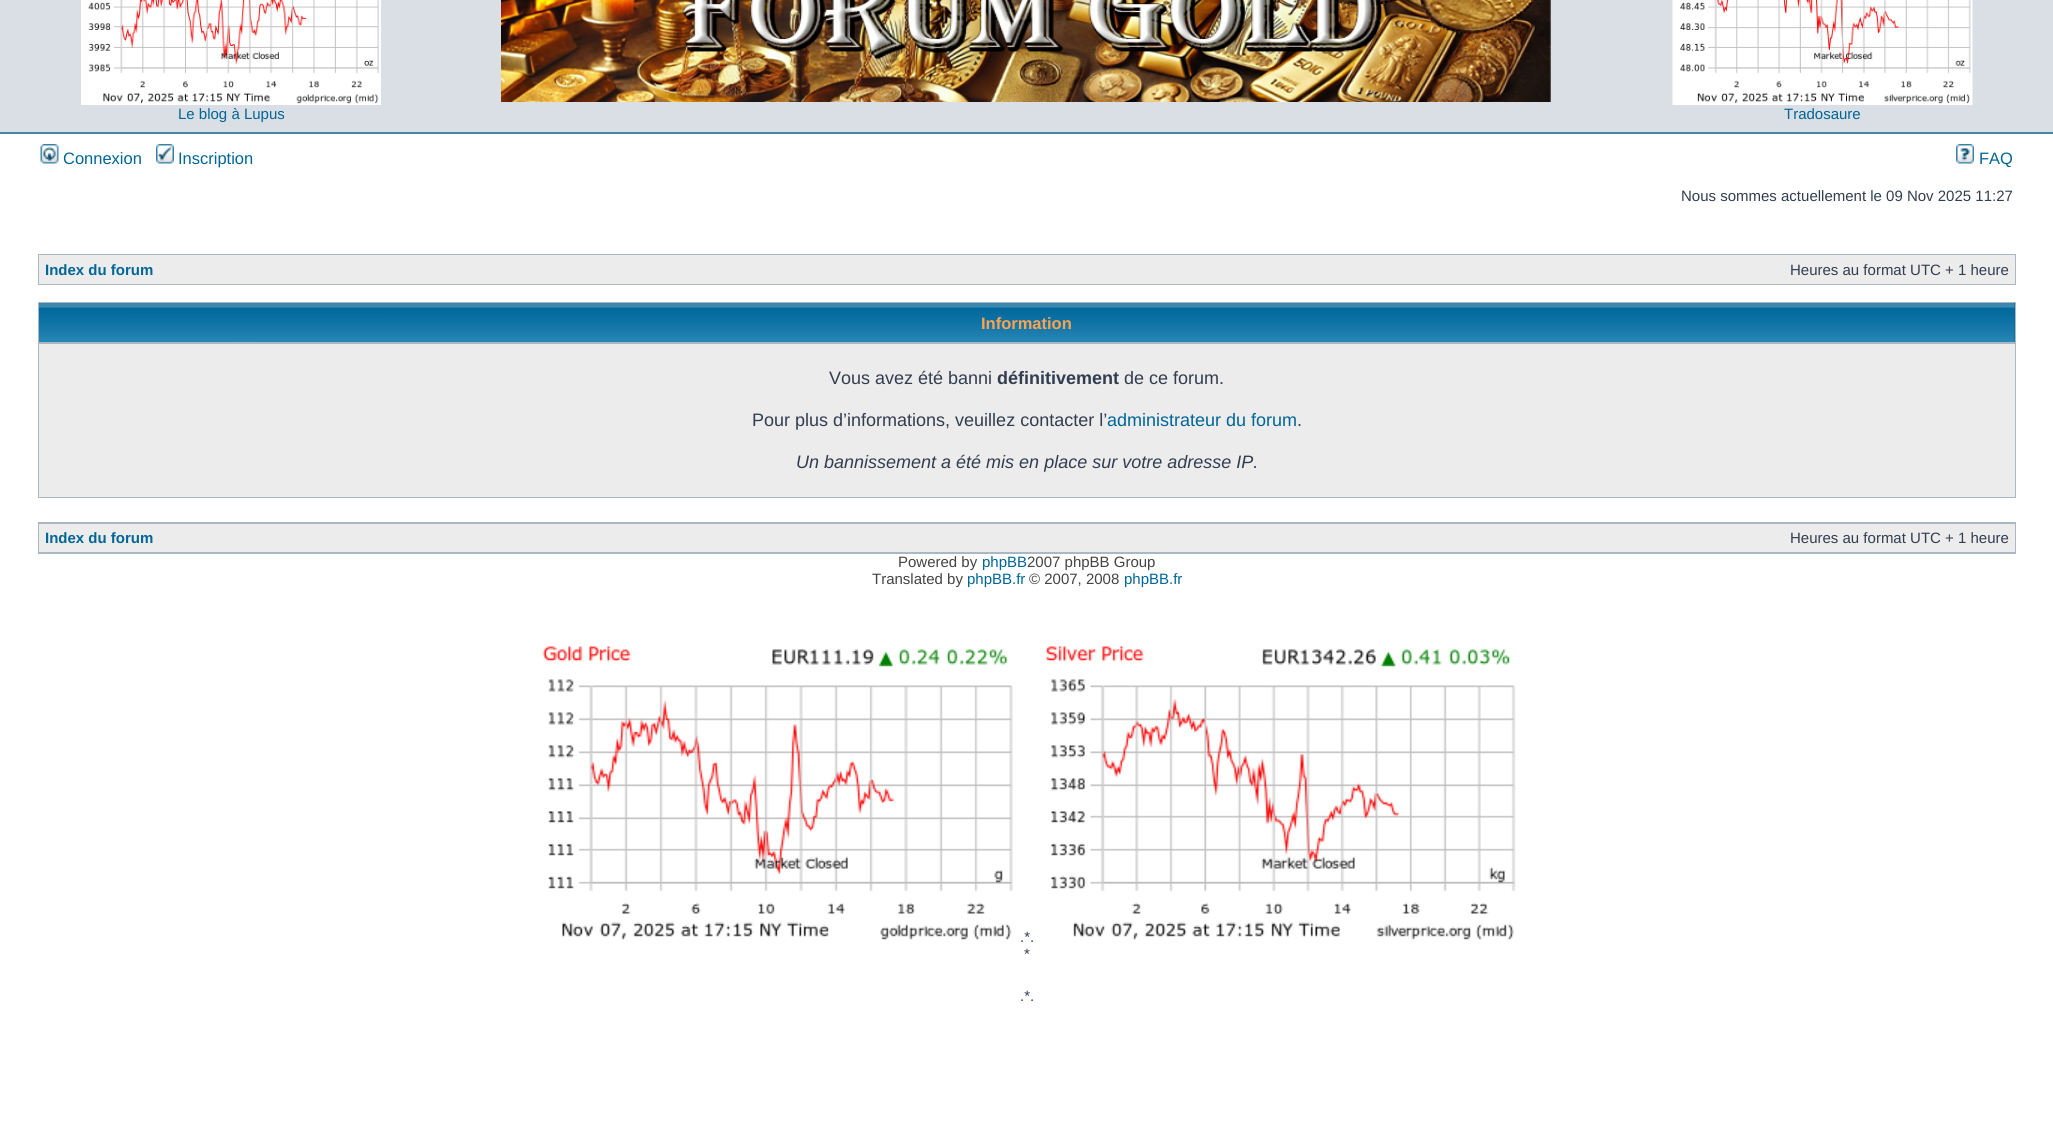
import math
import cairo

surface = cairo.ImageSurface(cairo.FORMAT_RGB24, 2053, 1143)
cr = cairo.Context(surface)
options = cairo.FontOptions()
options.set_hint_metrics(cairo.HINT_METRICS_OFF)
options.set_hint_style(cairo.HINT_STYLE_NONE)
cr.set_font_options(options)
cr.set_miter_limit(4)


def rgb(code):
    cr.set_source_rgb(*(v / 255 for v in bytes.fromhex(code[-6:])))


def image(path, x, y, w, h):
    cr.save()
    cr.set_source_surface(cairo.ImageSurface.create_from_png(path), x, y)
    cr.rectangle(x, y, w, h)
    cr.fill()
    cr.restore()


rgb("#ffffff")
cr.paint()
rgb("#d9dfe4")
cr.rectangle(0, 0, 2053, 132)
cr.fill()
rgb("#4787a7")
cr.rectangle(0, 132, 2053, 2)
cr.fill()
image("img/1.png", 501, 0, 1050, 102)
image("img/2.png", 81, 0, 300, 105)
image("img/3.png", 1672, 0, 301, 105)
image("img/4.png", 40, 144, 19, 20)
image("img/5.png", 156, 144, 18, 20)
image("img/6.png", 1956, 144, 18, 20)
for x, y, w, h, color in [
    (38, 254, 1978, 31, "#a9b8c2"),
    (39, 255, 1976, 29, "#ececec"),
    (38, 302, 1978, 196, "#a9b8c2"),
    (2014, 303, 1, 39, "#006699"),
]:
    rgb(color)
    cr.rectangle(x, y, w, h)
    cr.fill()
image("img/7.png", 39, 303, 1976, 39)
for x, y, w, h, color in [
    (39, 344, 1976, 153, "#ececec"),
    (38, 522, 1978, 32, "#a9b8c2"),
    (39, 524, 1976, 28, "#ececec"),
]:
    rgb(color)
    cr.rectangle(x, y, w, h)
    cr.fill()
image("img/8.png", 542, 646, 471, 294)
image("img/9.png", 1045, 646, 471, 294)
cr.select_font_face("Liberation Sans")
cr.set_font_size(15)
rgb("#006597")
cr.move_to(178, 119)
cr.show_text("Le blog à Lupus")
cr.move_to(1784, 119)
cr.show_text("Tradosaure")
cr.set_font_size(16.5)
for x, y, s in [
    (63, 164, "Connexion"),
    (178, 164, "Inscription"),
    (1979, 164, "FAQ"),
]:
    cr.move_to(x, y)
    cr.show_text(s)
cr.set_font_size(15)
rgb("#323d4f")
cr.move_to(1681, 201)
cr.show_text("Nous sommes actuellement le 09 Nov 2025 11:27")
cr.select_font_face("Liberation Sans", cairo.FONT_SLANT_NORMAL, cairo.FONT_WEIGHT_BOLD)
rgb("#006597")
cr.move_to(45, 275)
cr.show_text("Index du forum")
cr.select_font_face("Liberation Sans")
rgb("#323d4f")
cr.move_to(1790, 275)
cr.show_text("Heures au format UTC + 1 heure")
cr.select_font_face("Liberation Sans", cairo.FONT_SLANT_NORMAL, cairo.FONT_WEIGHT_BOLD)
cr.set_font_size(16.5)
rgb("#ffa34f")
cr.move_to(981, 329)
cr.show_text("Information")
cr.select_font_face("Liberation Sans")
cr.set_font_size(18)
rgb("#323d4f")
cr.move_to(829, 384)
cr.show_text("Vous avez été banni")
cr.select_font_face("Liberation Sans", cairo.FONT_SLANT_NORMAL, cairo.FONT_WEIGHT_BOLD)
cr.move_to(997, 384)
cr.show_text("définitivement")
cr.select_font_face("Liberation Sans")
cr.move_to(1124, 384)
cr.show_text("de ce forum.")
cr.move_to(752, 426)
cr.show_text("Pour plus d’informations, veuillez contacter l’")
rgb("#006597")
cr.move_to(1107, 426)
cr.show_text("administrateur du forum")
rgb("#323d4f")
cr.move_to(1297, 426)
cr.show_text(".")
cr.select_font_face("Liberation Sans", cairo.FONT_SLANT_ITALIC)
cr.move_to(796, 468)
cr.show_text("Un bannissement a été mis en place sur votre adresse IP.")
cr.select_font_face("Liberation Sans", cairo.FONT_SLANT_NORMAL, cairo.FONT_WEIGHT_BOLD)
cr.set_font_size(15)
rgb("#006597")
cr.move_to(45, 543)
cr.show_text("Index du forum")
cr.select_font_face("Liberation Sans")
rgb("#323d4f")
cr.move_to(1790, 543)
cr.show_text("Heures au format UTC + 1 heure")
rgb("#444444")
cr.move_to(898, 567)
cr.show_text("Powered by")
rgb("#006597")
cr.move_to(982, 567)
cr.show_text("phpBB")
rgb("#444444")
cr.move_to(1027, 567)
cr.show_text("2007 phpBB Group")
cr.move_to(872, 584)
cr.show_text("Translated by")
rgb("#006597")
cr.move_to(967, 584)
cr.show_text("phpBB.fr")
rgb("#444444")
cr.move_to(1029, 584)
cr.show_text("© 2007, 2008")
rgb("#006597")
cr.move_to(1124, 584)
cr.show_text("phpBB.fr")
rgb("#323d4f")
for x, y, s in [
    (1020, 942, ".*."),
    (1024, 959, "*"),
    (1020, 1001, ".*."),
]:
    cr.move_to(x, y)
    cr.show_text(s)
surface.write_to_png("page.png")
